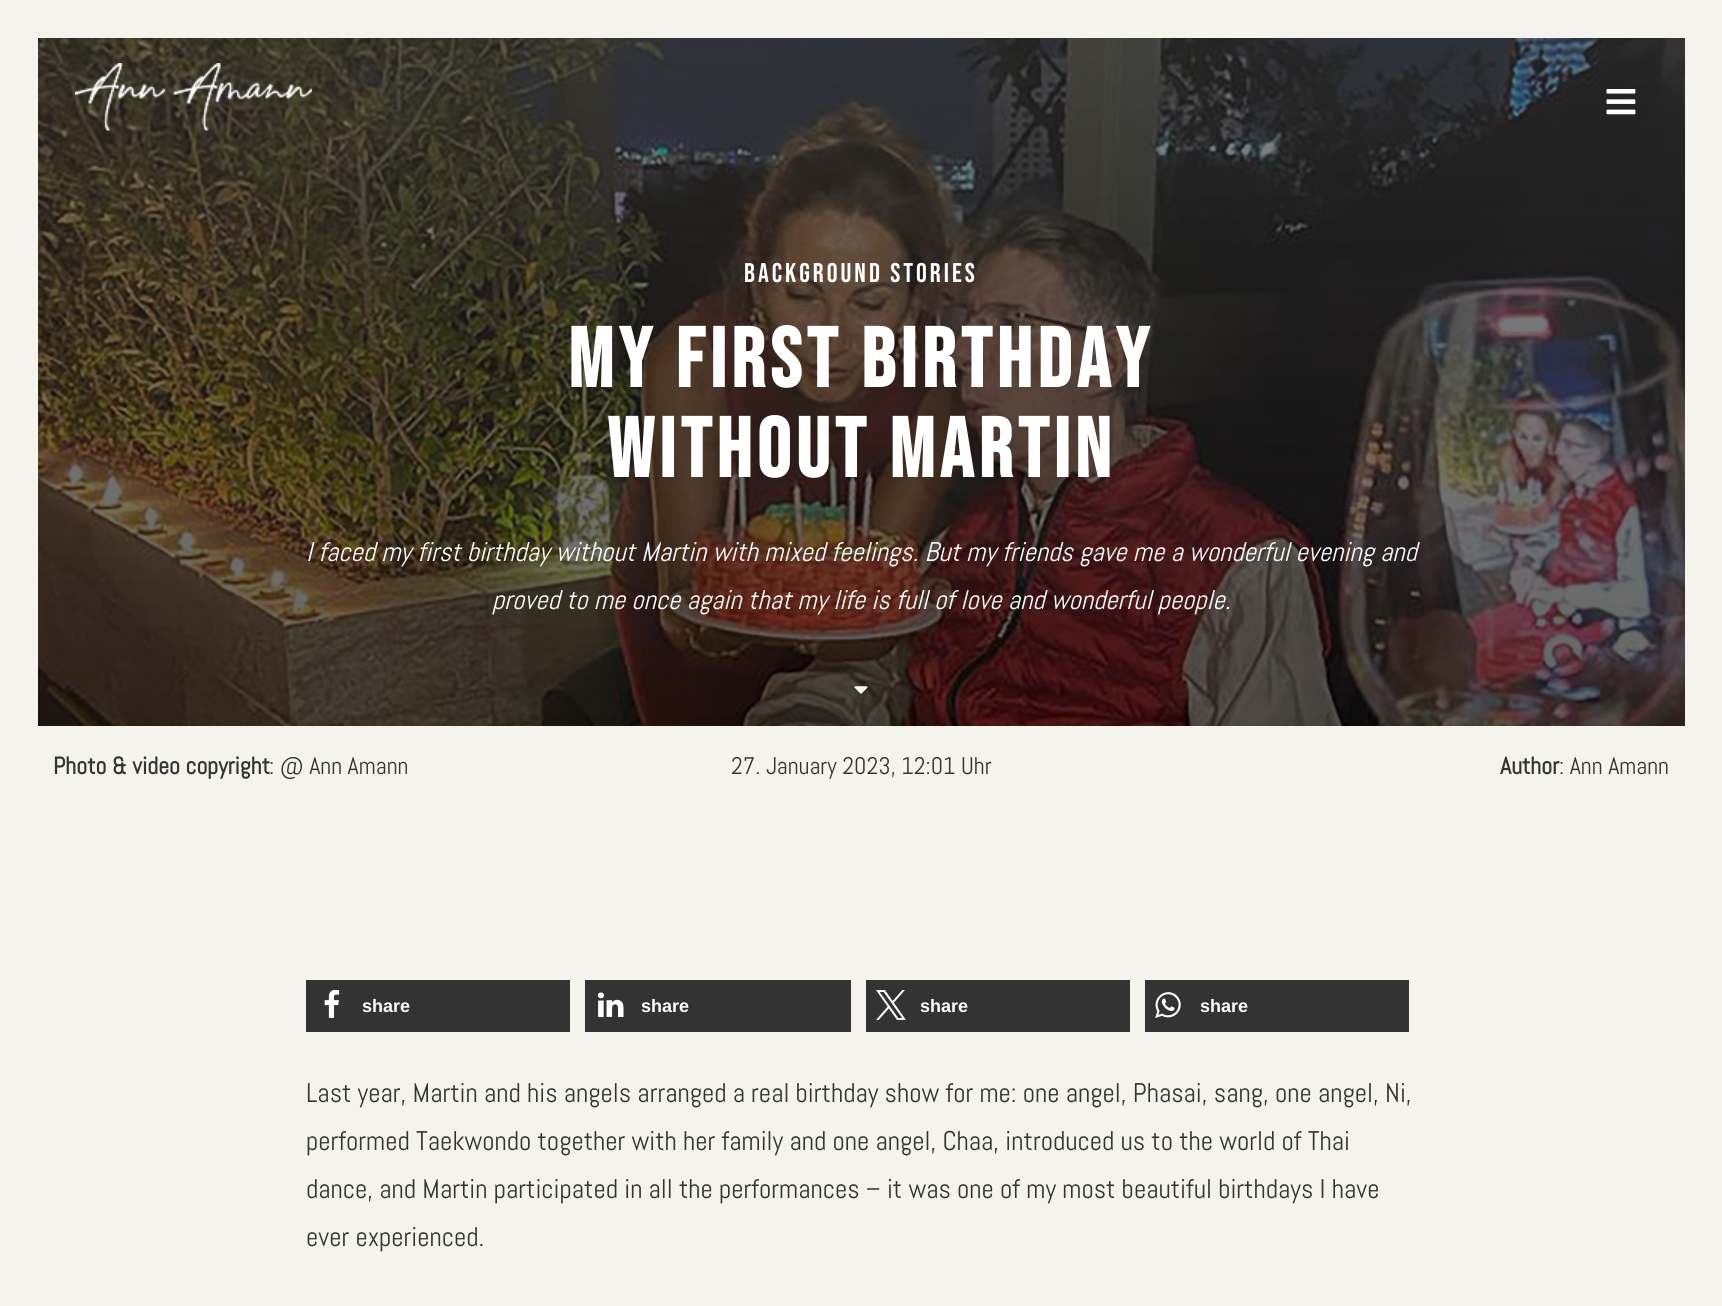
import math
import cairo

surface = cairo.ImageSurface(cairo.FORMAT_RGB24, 1722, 1306)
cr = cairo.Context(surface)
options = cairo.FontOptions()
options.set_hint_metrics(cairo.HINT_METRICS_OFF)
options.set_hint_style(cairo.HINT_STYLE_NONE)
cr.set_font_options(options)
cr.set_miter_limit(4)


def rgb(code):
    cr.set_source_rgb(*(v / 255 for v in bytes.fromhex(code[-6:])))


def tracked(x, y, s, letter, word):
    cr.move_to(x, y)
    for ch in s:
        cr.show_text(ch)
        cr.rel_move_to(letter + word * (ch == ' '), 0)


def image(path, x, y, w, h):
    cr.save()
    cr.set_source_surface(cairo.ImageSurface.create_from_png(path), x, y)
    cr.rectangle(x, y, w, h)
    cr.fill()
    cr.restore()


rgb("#f4f3ec")
cr.paint()
image("img/3.png", 38, 38, 1647, 688)
image("img/1.png", 75, 63, 237, 68)
image("img/2.png", 1606, 89, 30, 26)
image("img/4.png", 854, 686, 14, 8)
rgb("#333333")
cr.rectangle(306, 980, 264, 52)
cr.fill()
image("img/5.png", 324, 989, 16, 29)
cr.rectangle(585, 980, 266, 52)
cr.fill()
image("img/6.png", 597, 992, 27, 26)
cr.rectangle(866, 980, 264, 52)
cr.fill()
image("img/7.png", 876, 990, 30, 30)
cr.rectangle(1145, 980, 264, 52)
cr.fill()
image("img/8.png", 1155, 992, 26, 26)
cr.select_font_face("Bebas Neue")
cr.set_font_size(27)
rgb("#ffffff")
tracked(744, 282, "BACKGROUND STORIES", 3, 0)
cr.select_font_face("Bebas Neue", cairo.FONT_SLANT_NORMAL, cairo.FONT_WEIGHT_BOLD)
cr.set_font_size(84)
tracked(568, 387, "My first birthday", 5.25, 0)
tracked(607, 477, "without Martin", 5.25, 0)
cr.select_font_face("Abel", cairo.FONT_SLANT_ITALIC)
cr.set_font_size(27)
cr.move_to(306, 561)
cr.show_text("I faced my first birthday without Martin with mixed feelings. But my friends gave me a wonderful evening and")
cr.move_to(492, 609)
cr.show_text("proved to me once again that my life is full of love and wonderful people.")
cr.select_font_face("Abel", cairo.FONT_SLANT_NORMAL, cairo.FONT_WEIGHT_BOLD)
cr.set_font_size(24)
rgb("#333333")
cr.move_to(53, 774)
cr.show_text("Photo & video copyright")
cr.select_font_face("Abel")
cr.move_to(269, 774)
cr.show_text(": @ Ann Amann")
cr.move_to(731, 774)
cr.show_text("27. January 2023, 12:01 Uhr")
cr.select_font_face("Abel", cairo.FONT_SLANT_NORMAL, cairo.FONT_WEIGHT_BOLD)
cr.move_to(1500, 774)
cr.show_text("Author")
cr.select_font_face("Abel")
cr.move_to(1559, 774)
cr.show_text(": Ann Amann")
cr.select_font_face("Liberation Sans", cairo.FONT_SLANT_NORMAL, cairo.FONT_WEIGHT_BOLD)
cr.set_font_size(18)
rgb("#ffffff")
for x, y, s in [
    (362, 1012, "share"),
    (641, 1012, "share"),
    (920, 1012, "share"),
    (1200, 1012, "share"),
]:
    cr.move_to(x, y)
    cr.show_text(s)
cr.select_font_face("Abel")
cr.set_font_size(27)
rgb("#333333")
for x, y, s in [
    (306, 1102, "Last year, Martin and his angels arranged a real birthday show for me: one angel, Phasai, sang, one angel, Ni,"),
    (306, 1150, "performed Taekwondo together with her family and one angel, Chaa, introduced us to the world of Thai"),
    (306, 1198, "dance, and Martin participated in all the performances – it was one of my most beautiful birthdays I have"),
    (306, 1246, "ever experienced."),
]:
    cr.move_to(x, y)
    cr.show_text(s)
surface.write_to_png("page.png")
